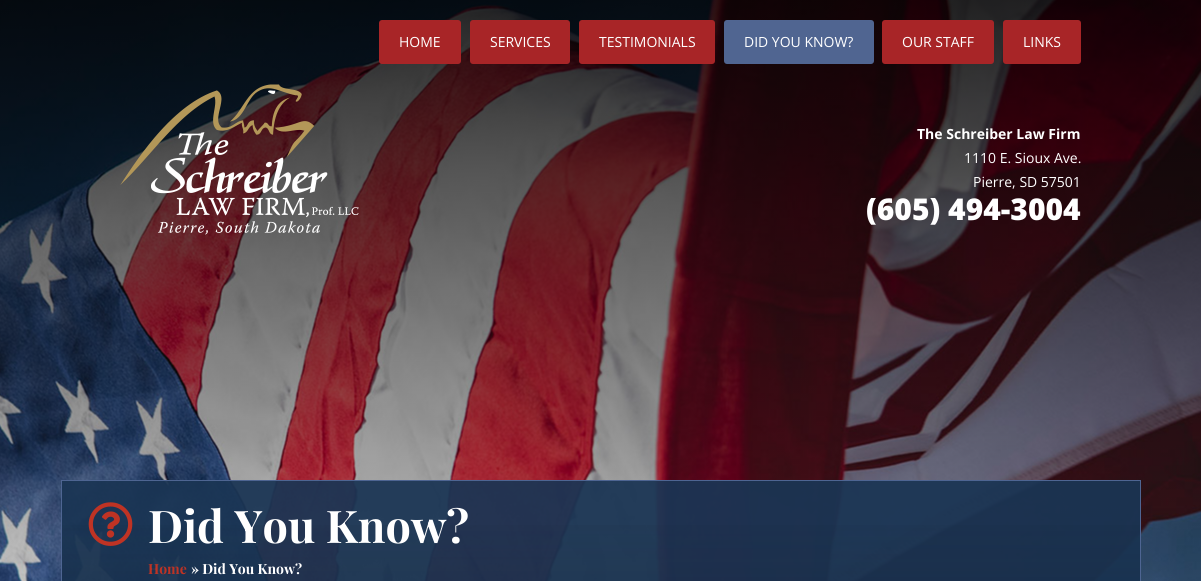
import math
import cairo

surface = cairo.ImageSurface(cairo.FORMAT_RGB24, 1201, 581)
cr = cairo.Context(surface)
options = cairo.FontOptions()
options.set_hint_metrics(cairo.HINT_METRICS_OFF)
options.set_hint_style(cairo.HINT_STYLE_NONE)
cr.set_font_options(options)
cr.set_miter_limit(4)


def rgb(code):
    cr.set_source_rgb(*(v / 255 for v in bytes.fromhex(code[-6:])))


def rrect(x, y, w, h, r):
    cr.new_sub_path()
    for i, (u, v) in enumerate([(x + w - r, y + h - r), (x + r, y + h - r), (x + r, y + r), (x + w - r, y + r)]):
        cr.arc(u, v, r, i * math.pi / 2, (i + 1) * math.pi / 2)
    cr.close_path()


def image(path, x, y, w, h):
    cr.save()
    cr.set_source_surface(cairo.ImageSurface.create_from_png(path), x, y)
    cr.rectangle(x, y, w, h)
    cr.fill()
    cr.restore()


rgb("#ffffff")
cr.paint()
image("img/1.png", 0, 0, 1201, 581)
rgb("#a82527")
rrect(379, 20, 82, 44, 3)
cr.fill()
rrect(470, 20, 100, 44, 3)
cr.fill()
rrect(579, 20, 136, 44, 3)
cr.fill()
rgb("#506591")
rrect(724, 20, 150, 44, 3)
cr.fill()
rgb("#a82527")
rrect(882, 20, 112, 44, 3)
cr.fill()
rrect(1003, 20, 78, 44, 3)
cr.fill()
image("img/2.png", 120, 84, 239, 151)
cr.set_source_rgba(0.102, 0.208, 0.329, 0.93)
cr.rectangle(62, 481, 1078, 100)
cr.fill()
gradient = cairo.LinearGradient(601, 481, 601, 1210)
gradient.add_color_stop_rgba(0, 0.063, 0.129, 0.2, 0)
gradient.add_color_stop_rgba(1, 0.063, 0.129, 0.2, 1)
cr.set_source(gradient)
cr.rectangle(62, 525, 1078, 56)
cr.fill()
cr.rectangle(61.5, 480.5, 1079, 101)
rgb("#4e6592")
cr.set_line_width(1)
cr.stroke()
image("img/3.png", 88, 502, 45, 44)
cr.select_font_face("Open Sans")
cr.set_font_size(14)
rgb("#ffffff")
for x, y, s in [
    (399, 47, "HOME"),
    (490, 47, "SERVICES"),
    (599, 47, "TESTIMONIALS"),
    (744, 47, "DID YOU KNOW?"),
    (902, 47, "OUR STAFF"),
    (1023, 47, "LINKS"),
]:
    cr.move_to(x, y)
    cr.show_text(s)
cr.select_font_face("Open Sans", cairo.FONT_SLANT_NORMAL, cairo.FONT_WEIGHT_BOLD)
cr.move_to(917, 139)
cr.show_text("The Schreiber Law Firm")
cr.select_font_face("Open Sans")
cr.move_to(964, 163)
cr.show_text("1110 E. Sioux Ave.")
cr.move_to(973, 187)
cr.show_text("Pierre, SD 57501")
cr.select_font_face("Open Sans ExtraBold")
cr.set_font_size(30)
cr.move_to(866, 220)
cr.show_text("(605) 494-3004")
cr.select_font_face("Playfair Display", cairo.FONT_SLANT_NORMAL, cairo.FONT_WEIGHT_BOLD)
cr.set_font_size(45)
cr.move_to(148, 543)
cr.show_text("Did You Know?")
cr.set_font_size(14)
rgb("#bf3324")
cr.move_to(148, 574)
cr.show_text("Home")
rgb("#ffffff")
cr.move_to(191, 574)
cr.show_text("» Did You Know?")
surface.write_to_png("page.png")
